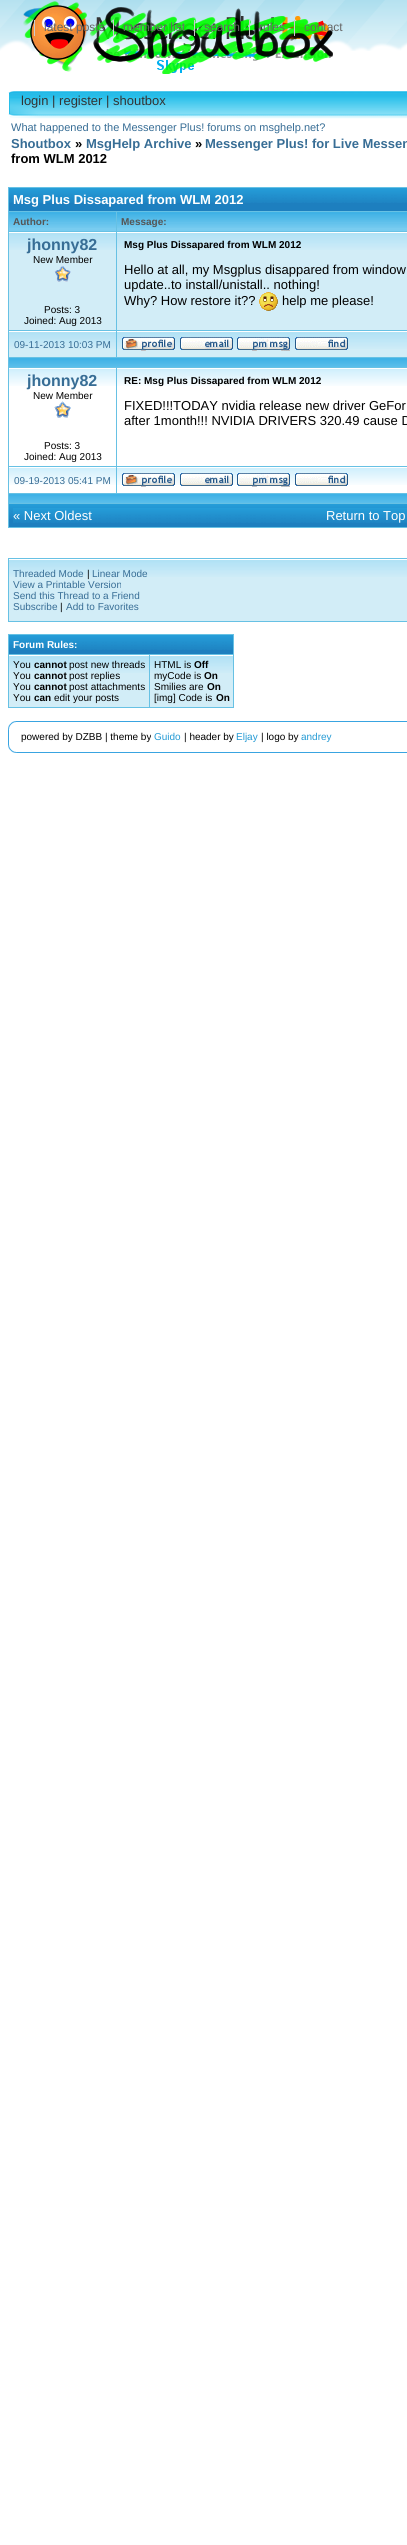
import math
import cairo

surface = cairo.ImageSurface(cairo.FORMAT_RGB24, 407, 2545)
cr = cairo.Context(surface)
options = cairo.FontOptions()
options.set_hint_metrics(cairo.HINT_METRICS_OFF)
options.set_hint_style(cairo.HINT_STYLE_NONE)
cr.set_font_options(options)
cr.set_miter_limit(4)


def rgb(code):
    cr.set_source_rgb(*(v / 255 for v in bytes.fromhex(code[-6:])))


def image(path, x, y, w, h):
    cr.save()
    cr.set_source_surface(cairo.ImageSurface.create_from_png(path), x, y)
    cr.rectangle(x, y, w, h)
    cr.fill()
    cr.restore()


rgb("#ffffff")
cr.paint()
image("img/1.png", 0, 0, 407, 51)
image("img/2.png", 23, 1, 310, 73)
for x, y, w, h, color in [
    (34, 20, 1, 16, "#cccccc"),
    (113, 20, 1, 16, "#cccccc"),
    (194, 20, 1, 16, "#cccccc"),
    (249, 20, 1, 16, "#cccccc"),
    (294, 20, 1, 16, "#cccccc"),
]:
    rgb(color)
    cr.rectangle(x, y, w, h)
    cr.fill()
image("img/3.png", 48, 91, 359, 28)
image("img/4.png", 8, 91, 40, 28)
rgb("#67c1e4")
cr.rectangle(8, 187, 399, 341)
cr.fill()
rgb("#1d7fbf")
cr.rectangle(9, 203, 398, 8)
cr.fill()
image("img/5.png", 9, 188, 398, 15)
rgb("#79ccf0")
cr.rectangle(9, 228, 107, 3)
cr.fill()
image("img/6.png", 9, 212, 107, 16)
cr.rectangle(117, 228, 290, 3)
cr.fill()
image("img/7.png", 117, 212, 290, 16)
rgb("#d2edf7")
cr.rectangle(9, 250, 107, 80)
cr.fill()
image("img/8.png", 9, 232, 107, 18)
image("img/9.png", 54, 265, 17, 17)
cr.rectangle(117, 250, 290, 80)
cr.fill()
image("img/10.png", 117, 232, 290, 18)
image("img/11.png", 259, 292, 19, 19)
cr.rectangle(9, 349, 107, 8)
cr.fill()
image("img/8.png", 9, 331, 107, 18)
cr.rectangle(117, 349, 290, 8)
cr.fill()
image("img/10.png", 117, 331, 290, 18)
image("img/12.png", 122, 337, 53, 14)
image("img/13.png", 180, 337, 53, 13)
image("img/14.png", 237, 337, 53, 14)
image("img/15.png", 295, 337, 53, 13)
image("img/16.png", 9, 358, 398, 9)
rgb("#ffffff")
cr.rectangle(9, 368, 107, 98)
cr.fill()
image("img/17.png", 9, 369, 107, 17)
image("img/18.png", 54, 401, 17, 17)
cr.rectangle(117, 368, 290, 98)
cr.fill()
image("img/19.png", 117, 369, 290, 17)
cr.rectangle(9, 467, 107, 26)
cr.fill()
image("img/17.png", 9, 468, 107, 17)
cr.rectangle(117, 467, 290, 26)
cr.fill()
image("img/19.png", 117, 468, 290, 17)
image("img/20.png", 122, 473, 53, 14)
image("img/21.png", 180, 473, 53, 13)
image("img/22.png", 237, 473, 53, 14)
image("img/23.png", 295, 473, 53, 13)
image("img/16.png", 9, 494, 398, 9)
rgb("#1d7fbf")
cr.rectangle(9, 519, 398, 8)
cr.fill()
image("img/5.png", 9, 504, 398, 15)
image("img/24.png", 13, 508, 235, 15)
image("img/25.png", 248, 508, 159, 15)
rgb("#67c1e4")
cr.rectangle(8, 558, 399, 64)
cr.fill()
rgb("#d2edf7")
cr.rectangle(9, 577, 398, 44)
cr.fill()
image("img/26.png", 9, 559, 398, 18)
rgb("#67c1e4")
cr.rectangle(8, 634, 226, 74)
cr.fill()
rgb("#1d7fbf")
cr.rectangle(9, 650, 224, 4)
cr.fill()
image("img/27.png", 9, 635, 224, 15)
rgb("#d2edf7")
cr.rectangle(9, 673, 140, 34)
cr.fill()
image("img/28.png", 9, 655, 140, 18)
cr.rectangle(150, 673, 83, 34)
cr.fill()
image("img/29.png", 150, 655, 83, 18)
for x, y, w, h, color in [
    (8, 721, 399, 1, "#39a4e1"),
    (17, 752, 390, 1, "#39a4e1"),
    (8, 722, 1, 30, "#39a4e1"),
]:
    rgb(color)
    cr.rectangle(x, y, w, h)
    cr.fill()
image("img/30.png", 8, 745, 9, 8)
image("img/31.png", 8, 721, 8, 9)
cr.select_font_face("Liberation Sans")
cr.set_font_size(12)
rgb("#666666")
for x, y, s in [
    (44, 31, "latest posts"),
    (123, 31, "member list"),
    (204, 31, "search"),
    (259, 31, "rules"),
    (304, 31, "contact"),
]:
    cr.move_to(x, y)
    cr.show_text(s)
cr.set_font_size(13)
rgb("#333333")
cr.move_to(21, 105)
cr.show_text("login | register | shoutbox")
cr.set_font_size(11)
rgb("#376d95")
cr.move_to(11, 131)
cr.show_text("What happened to the Messenger Plus! forums on msghelp.net?")
cr.select_font_face("Liberation Sans", cairo.FONT_SLANT_NORMAL, cairo.FONT_WEIGHT_BOLD)
cr.set_font_size(13)
cr.move_to(11, 148)
cr.show_text("Shoutbox")
rgb("#000000")
cr.move_to(75, 148)
cr.show_text("»")
rgb("#376d95")
cr.move_to(86, 148)
cr.show_text("MsgHelp Archive")
rgb("#000000")
cr.move_to(195, 148)
cr.show_text("»")
rgb("#376d95")
cr.move_to(205, 148)
cr.show_text("Messenger Plus! for Live Messen")
rgb("#000000")
cr.move_to(11, 163)
cr.show_text("from WLM 2012")
rgb("#ffffff")
cr.move_to(13, 204)
cr.show_text("Msg Plus Dissapared from WLM 2012")
cr.set_font_size(10)
rgb("#555555")
cr.move_to(13, 225)
cr.show_text("Author:")
cr.move_to(121, 225)
cr.show_text("Message:")
cr.set_font_size(16)
rgb("#376d95")
cr.move_to(27, 250)
cr.show_text("jhonny82")
cr.select_font_face("Liberation Sans")
cr.set_font_size(10)
rgb("#000000")
for x, y, s in [
    (33, 263, "New Member"),
    (44, 313, "Posts: 3"),
    (24, 324, "Joined: Aug 2013"),
]:
    cr.move_to(x, y)
    cr.show_text(s)
cr.select_font_face("Liberation Sans", cairo.FONT_SLANT_NORMAL, cairo.FONT_WEIGHT_BOLD)
cr.move_to(124, 248)
cr.show_text("Msg Plus Dissapared from WLM 2012")
cr.select_font_face("Liberation Sans")
cr.set_font_size(13)
for x, y, s in [
    (124, 274, "Hello at all, my Msgplus disappared from window"),
    (124, 289, "update..to install/unistall.. nothing!"),
    (124, 305, "Why? How restore it??"),
    (282, 305, "help me please!"),
]:
    cr.move_to(x, y)
    cr.show_text(s)
cr.set_font_size(10)
rgb("#376d95")
cr.move_to(14, 348)
cr.show_text("09-11-2013 10:03 PM")
cr.select_font_face("Liberation Sans", cairo.FONT_SLANT_NORMAL, cairo.FONT_WEIGHT_BOLD)
cr.set_font_size(16)
cr.move_to(27, 386)
cr.show_text("jhonny82")
cr.select_font_face("Liberation Sans")
cr.set_font_size(10)
rgb("#000000")
for x, y, s in [
    (33, 399, "New Member"),
    (44, 449, "Posts: 3"),
    (24, 460, "Joined: Aug 2013"),
]:
    cr.move_to(x, y)
    cr.show_text(s)
cr.select_font_face("Liberation Sans", cairo.FONT_SLANT_NORMAL, cairo.FONT_WEIGHT_BOLD)
cr.move_to(124, 384)
cr.show_text("RE: Msg Plus Dissapared from WLM 2012")
cr.select_font_face("Liberation Sans")
cr.set_font_size(13)
cr.move_to(124, 410)
cr.show_text("FIXED!!!TODAY nvidia release new driver GeFor")
cr.move_to(124, 425)
cr.show_text("after 1month!!! NVIDIA DRIVERS 320.49 cause D")
cr.set_font_size(10)
rgb("#376d95")
cr.move_to(14, 484)
cr.show_text("09-19-2013 05:41 PM")
cr.set_font_size(13)
rgb("#ffffff")
cr.move_to(13, 520)
cr.show_text("« Next Oldest")
cr.move_to(326, 520)
cr.show_text("Return to Top")
cr.set_font_size(10)
rgb("#376d95")
cr.move_to(13, 577)
cr.show_text("Threaded Mode")
rgb("#000000")
cr.move_to(87, 577)
cr.show_text("|")
rgb("#376d95")
for x, y, s in [
    (92, 577, "Linear Mode"),
    (13, 588, "View a Printable Version"),
    (13, 599, "Send this Thread to a Friend"),
    (13, 610, "Subscribe"),
]:
    cr.move_to(x, y)
    cr.show_text(s)
rgb("#000000")
cr.move_to(60, 610)
cr.show_text("|")
rgb("#376d95")
cr.move_to(66, 610)
cr.show_text("Add to Favorites")
cr.select_font_face("Liberation Sans", cairo.FONT_SLANT_NORMAL, cairo.FONT_WEIGHT_BOLD)
rgb("#ffffff")
cr.move_to(13, 648)
cr.show_text("Forum Rules:")
cr.select_font_face("Liberation Sans")
rgb("#000000")
cr.move_to(13, 668)
cr.show_text("You")
cr.select_font_face("Liberation Sans", cairo.FONT_SLANT_NORMAL, cairo.FONT_WEIGHT_BOLD)
cr.move_to(34, 668)
cr.show_text("cannot")
cr.select_font_face("Liberation Sans")
cr.move_to(69, 668)
cr.show_text("post new threads")
cr.move_to(13, 679)
cr.show_text("You")
cr.select_font_face("Liberation Sans", cairo.FONT_SLANT_NORMAL, cairo.FONT_WEIGHT_BOLD)
cr.move_to(34, 679)
cr.show_text("cannot")
cr.select_font_face("Liberation Sans")
cr.move_to(69, 679)
cr.show_text("post replies")
cr.move_to(13, 690)
cr.show_text("You")
cr.select_font_face("Liberation Sans", cairo.FONT_SLANT_NORMAL, cairo.FONT_WEIGHT_BOLD)
cr.move_to(34, 690)
cr.show_text("cannot")
cr.select_font_face("Liberation Sans")
cr.move_to(69, 690)
cr.show_text("post attachments")
cr.move_to(13, 701)
cr.show_text("You")
cr.select_font_face("Liberation Sans", cairo.FONT_SLANT_NORMAL, cairo.FONT_WEIGHT_BOLD)
cr.move_to(34, 701)
cr.show_text("can")
cr.select_font_face("Liberation Sans")
cr.move_to(54, 701)
cr.show_text("edit your posts")
cr.move_to(154, 668)
cr.show_text("HTML is")
cr.select_font_face("Liberation Sans", cairo.FONT_SLANT_NORMAL, cairo.FONT_WEIGHT_BOLD)
cr.move_to(194, 668)
cr.show_text("Off")
cr.select_font_face("Liberation Sans")
cr.move_to(154, 679)
cr.show_text("myCode is")
cr.select_font_face("Liberation Sans", cairo.FONT_SLANT_NORMAL, cairo.FONT_WEIGHT_BOLD)
cr.move_to(204, 679)
cr.show_text("On")
cr.select_font_face("Liberation Sans")
cr.move_to(154, 690)
cr.show_text("Smilies are")
cr.select_font_face("Liberation Sans", cairo.FONT_SLANT_NORMAL, cairo.FONT_WEIGHT_BOLD)
cr.move_to(207, 690)
cr.show_text("On")
cr.select_font_face("Liberation Sans")
cr.move_to(154, 701)
cr.show_text("[img] Code is")
cr.select_font_face("Liberation Sans", cairo.FONT_SLANT_NORMAL, cairo.FONT_WEIGHT_BOLD)
cr.move_to(216, 701)
cr.show_text("On")
cr.select_font_face("Liberation Sans")
cr.move_to(21, 740)
cr.show_text("powered by DZBB | theme by")
rgb("#249ad4")
cr.move_to(154, 740)
cr.show_text("Guido")
rgb("#000000")
cr.move_to(184, 740)
cr.show_text("| header by")
rgb("#249ad4")
cr.move_to(236, 740)
cr.show_text("Eljay")
rgb("#000000")
cr.move_to(261, 740)
cr.show_text("| logo by")
rgb("#249ad4")
cr.move_to(301, 740)
cr.show_text("andrey")
surface.write_to_png("page.png")
